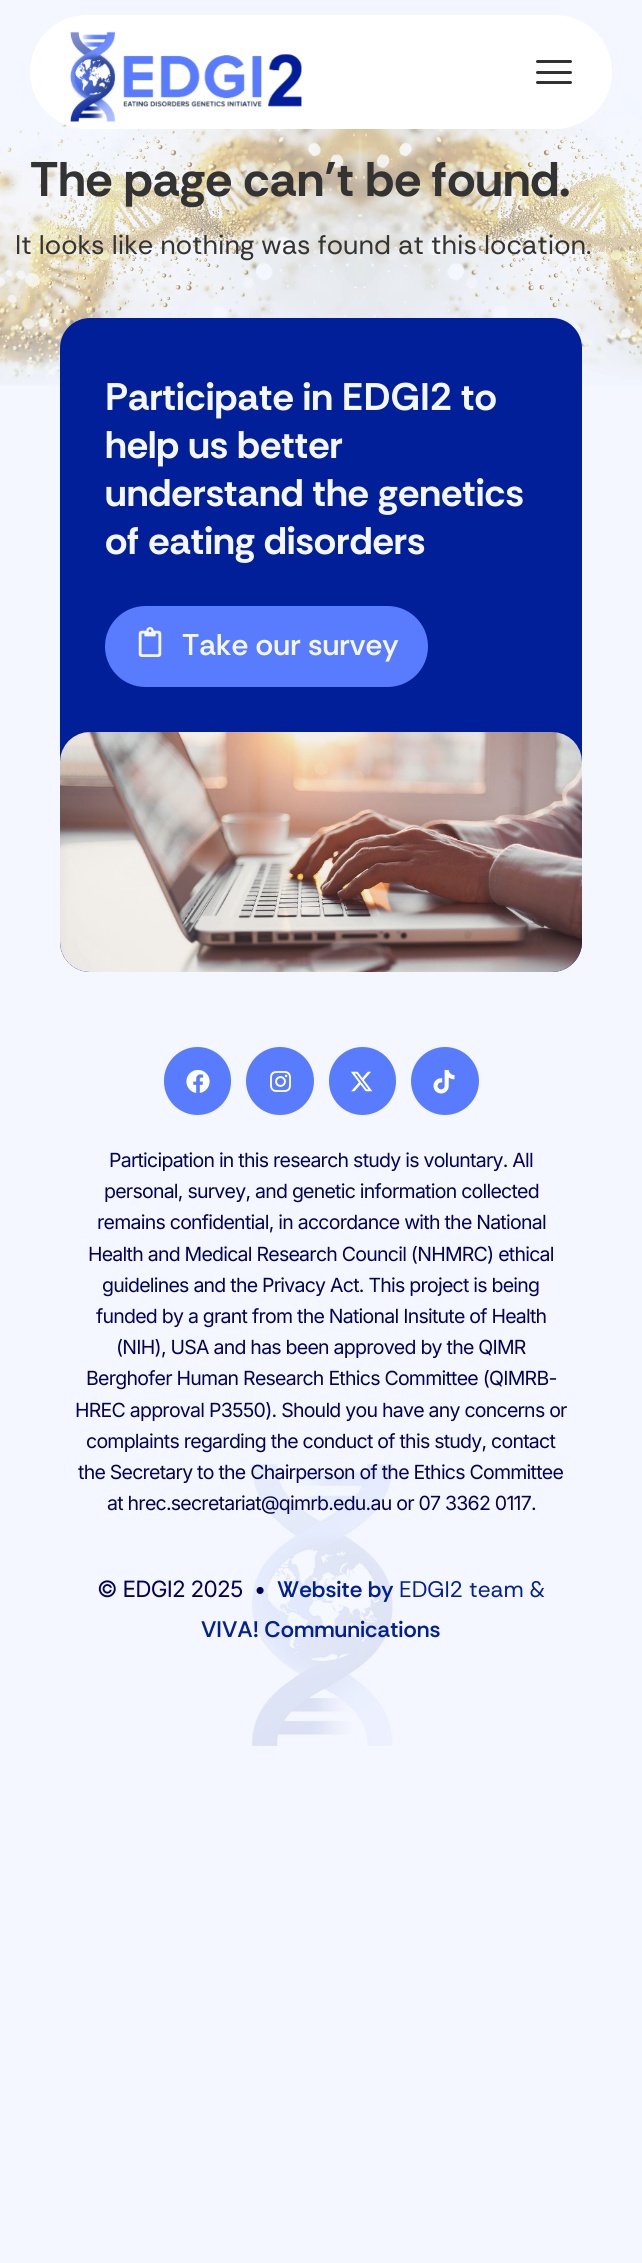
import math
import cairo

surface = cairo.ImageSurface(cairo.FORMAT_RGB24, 642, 2263)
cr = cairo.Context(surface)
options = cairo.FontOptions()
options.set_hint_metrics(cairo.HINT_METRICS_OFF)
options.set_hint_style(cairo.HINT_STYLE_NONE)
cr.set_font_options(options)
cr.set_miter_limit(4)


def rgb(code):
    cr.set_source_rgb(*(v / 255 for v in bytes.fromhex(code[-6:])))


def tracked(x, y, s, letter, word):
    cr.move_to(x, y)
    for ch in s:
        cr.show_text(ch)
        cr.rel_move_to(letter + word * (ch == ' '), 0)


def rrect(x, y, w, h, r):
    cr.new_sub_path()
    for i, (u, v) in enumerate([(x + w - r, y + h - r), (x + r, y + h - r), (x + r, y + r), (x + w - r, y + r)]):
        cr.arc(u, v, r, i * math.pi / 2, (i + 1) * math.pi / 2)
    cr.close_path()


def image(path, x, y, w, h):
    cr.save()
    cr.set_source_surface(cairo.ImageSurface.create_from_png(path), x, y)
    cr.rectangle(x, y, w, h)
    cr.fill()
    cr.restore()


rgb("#f4f7ff")
cr.paint()
image("img/1.png", 0, 32, 642, 354)
rgb("#ffffff")
rrect(30, 15, 582, 114, 57)
cr.fill()
image("img/2.png", 70, 31, 232, 91)
rgb("#313131")
rrect(536, 71, 36, 3, 1.5)
cr.fill()
rrect(536, 60, 36, 3, 1.5)
cr.fill()
rrect(536, 81, 36, 3, 1.5)
cr.fill()
rgb("#011f99")
rrect(60, 318, 522, 654, 30)
cr.fill()
rgb("#597cfe")
rrect(105, 606, 323, 81, 40.5)
cr.fill()
image("img/3.png", 138, 627, 24, 30)
image("img/4.png", 60, 732, 522, 240)
image("img/5.png", 252, 1464, 141, 282)
rrect(164, 1047, 67, 68, 33.5)
cr.fill()
image("img/6.png", 186, 1070, 24, 23)
cr.arc(280, 1081, 34, 0, 2 * math.pi)
cr.fill()
image("img/7.png", 270, 1071, 21, 21)
rrect(329, 1047, 67, 68, 33.5)
cr.fill()
image("img/8.png", 350, 1071, 23, 21)
cr.arc(445, 1081, 34, 0, 2 * math.pi)
cr.fill()
image("img/9.png", 433, 1070, 22, 24)
cr.select_font_face("Rethink Sans", cairo.FONT_SLANT_NORMAL, cairo.FONT_WEIGHT_BOLD)
cr.set_font_size(48.6)
rgb("#333333")
cr.move_to(30, 196)
cr.show_text("The page can’t be found.")
cr.select_font_face("Rethink Sans")
cr.set_font_size(27)
cr.move_to(15, 254)
cr.show_text("It looks like nothing was found at this location.")
cr.select_font_face("Rethink Sans", cairo.FONT_SLANT_NORMAL, cairo.FONT_WEIGHT_BOLD)
cr.set_font_size(38.5)
rgb("#f4f7ff")
for x, y, s in [
    (105, 410, "Participate in EDGI2 to"),
    (105, 458, "help us better"),
    (105, 506, "understand the genetics"),
    (105, 554, "of eating disorders"),
]:
    cr.move_to(x, y)
    cr.show_text(s)
cr.select_font_face("Rethink Sans SemiBold")
cr.set_font_size(30)
cr.move_to(182, 655)
cr.show_text("Take our survey")
cr.select_font_face("Inter")
cr.set_font_size(19.5)
rgb("#02025a")
for x, y, s in [
    (109, 1167, "Participation in this research study is voluntary. All"),
    (104, 1198, "personal, survey, and genetic information collected"),
    (97, 1229, "remains confidential, in accordance with the National"),
    (88, 1261, "Health and Medical Research Council (NHMRC) ethical"),
    (102, 1292, "guidelines and the Privacy Act. This project is being"),
    (96, 1323, "funded by a grant from the National Insitute of Health"),
    (116, 1354, "(NIH), USA and has been approved by the QIMR"),
    (86, 1385, "Berghofer Human Research Ethics Committee (QIMRB-"),
    (75, 1417, "HREC approval P3550). Should you have any concerns or"),
    (86, 1448, "complaints regarding the conduct of this study, contact"),
    (78, 1479, "the Secretary to the Chairperson of the Ethics Committee"),
    (107, 1510, "at hrec.secretariat@qimrb.edu.au or 07 3362 0117."),
]:
    tracked(x, y, s, -0.75, 0)
cr.set_font_size(22.5)
tracked(97, 1597, "© EDGI2 2025  •", -0.75, 0)
cr.select_font_face("Rethink Sans SemiBold")
rgb("#011f99")
cr.move_to(277, 1597)
cr.show_text("Website by")
cr.select_font_face("Rethink Sans")
cr.move_to(399, 1597)
cr.show_text("EDGI2 team &")
cr.select_font_face("Rethink Sans SemiBold")
cr.move_to(201, 1637)
cr.show_text("VIVA! Communications")
surface.write_to_png("page.png")
